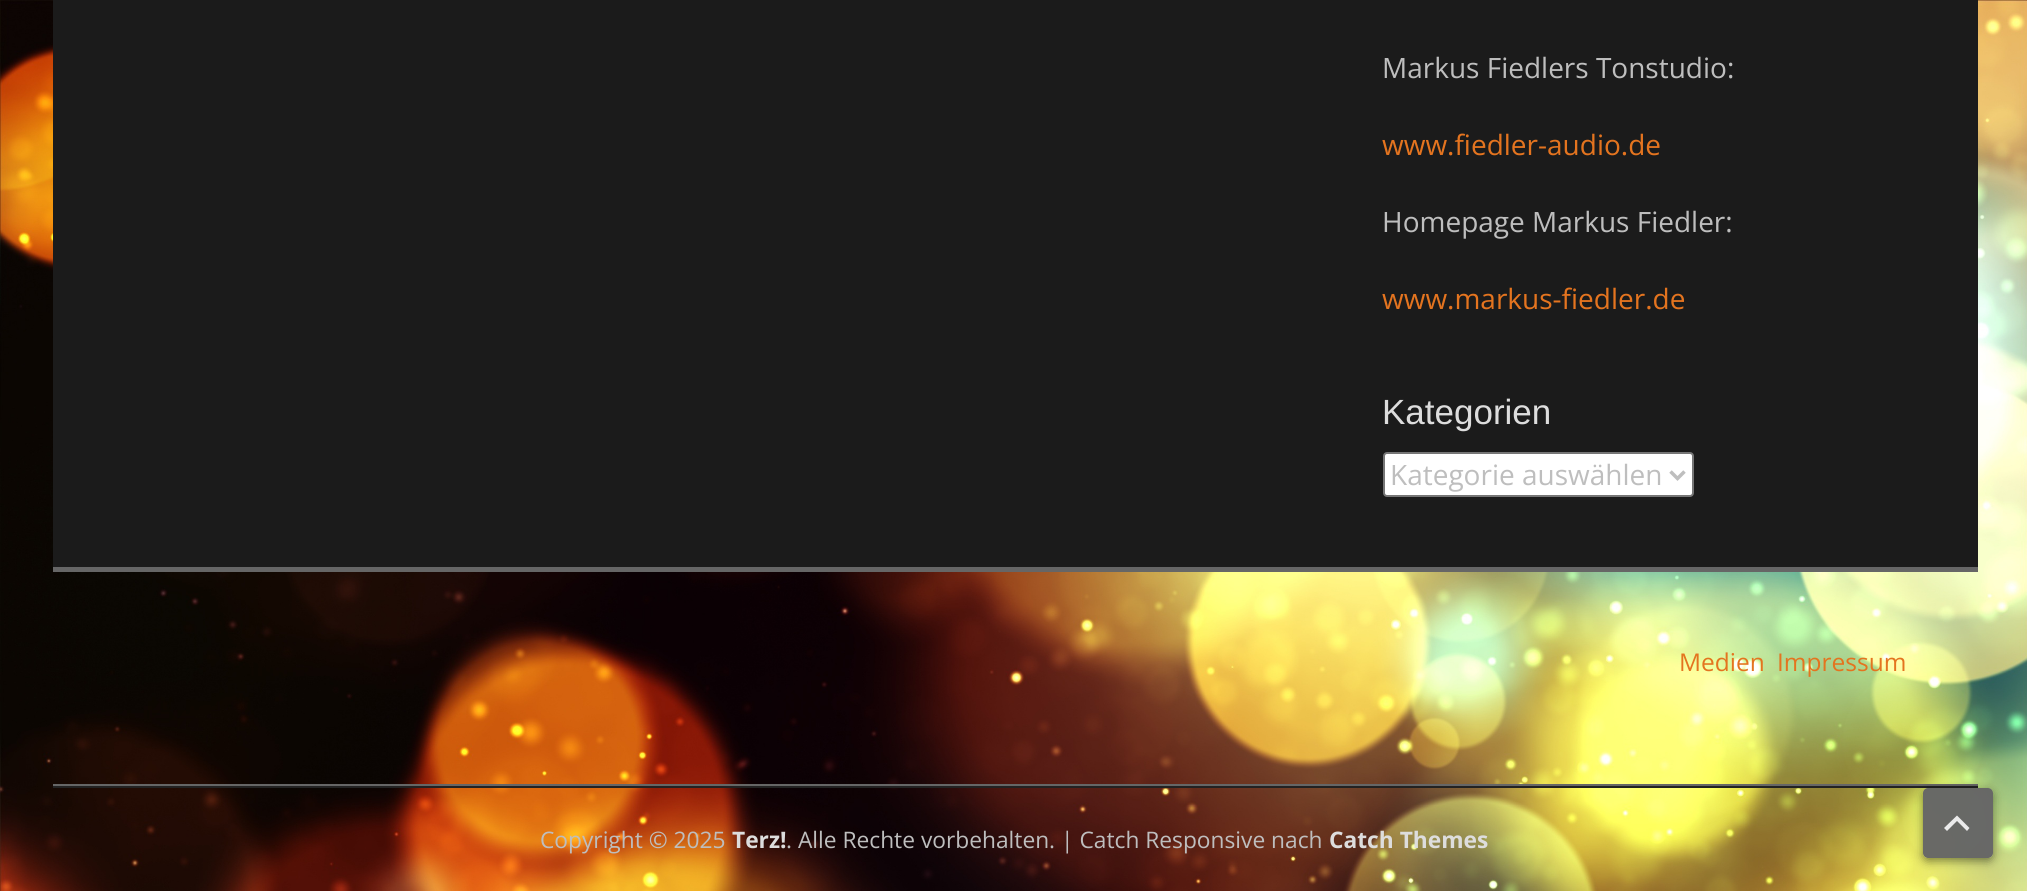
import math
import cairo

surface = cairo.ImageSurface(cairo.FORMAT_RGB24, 2027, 891)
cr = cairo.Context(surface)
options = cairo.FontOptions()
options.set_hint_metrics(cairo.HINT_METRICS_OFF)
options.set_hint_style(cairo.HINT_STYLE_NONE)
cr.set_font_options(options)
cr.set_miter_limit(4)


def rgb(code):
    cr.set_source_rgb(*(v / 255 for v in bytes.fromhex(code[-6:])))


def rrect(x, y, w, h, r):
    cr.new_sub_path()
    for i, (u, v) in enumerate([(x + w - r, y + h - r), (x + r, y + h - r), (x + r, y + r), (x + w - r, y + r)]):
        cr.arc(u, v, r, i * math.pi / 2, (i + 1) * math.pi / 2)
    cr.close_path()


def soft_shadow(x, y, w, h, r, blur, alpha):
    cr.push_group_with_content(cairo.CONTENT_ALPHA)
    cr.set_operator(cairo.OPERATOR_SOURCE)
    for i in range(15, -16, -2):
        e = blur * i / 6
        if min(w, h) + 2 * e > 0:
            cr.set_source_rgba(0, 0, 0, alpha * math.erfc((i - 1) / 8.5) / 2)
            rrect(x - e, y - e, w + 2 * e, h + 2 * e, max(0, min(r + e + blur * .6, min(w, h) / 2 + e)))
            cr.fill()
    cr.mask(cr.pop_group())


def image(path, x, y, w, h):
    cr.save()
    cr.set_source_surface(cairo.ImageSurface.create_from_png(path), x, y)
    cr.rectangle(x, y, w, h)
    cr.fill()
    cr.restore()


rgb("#ffffff")
cr.paint()
image("img/1.png", 0, 0, 2027, 891)
rgb("#1b1b1b")
cr.rectangle(53, 0, 1925, 567)
cr.fill()
rgb("#ffffff")
rrect(1384, 453, 309, 43, 3)
cr.fill_preserve()
rgb("#767676")
cr.stroke()
cr.new_path()
cr.move_to(1670.5, 471.5)
cr.line_to(1677.5, 478.5)
cr.line_to(1684.5, 471.5)
rgb("#bebebe")
cr.set_line_width(3.5)
cr.stroke()
for x, y, w, h, color in [
    (53, 567, 1925, 5, "#666666"),
    (53, 784, 1925, 2, "#666666"),
    (53, 786, 1925, 2, "#222222"),
]:
    rgb(color)
    cr.rectangle(x, y, w, h)
    cr.fill()
cr.save()
cr.set_fill_rule(cairo.FILL_RULE_EVEN_ODD)
cr.new_path()
cr.move_to(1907, 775)
cr.line_to(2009, 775)
cr.line_to(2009, 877)
cr.line_to(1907, 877)
cr.close_path()
cr.move_to(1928, 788)
cr.line_to(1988, 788)
cr.curve_to(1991, 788, 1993, 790, 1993, 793)
cr.line_to(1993, 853)
cr.curve_to(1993, 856, 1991, 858, 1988, 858)
cr.line_to(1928, 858)
cr.curve_to(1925, 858, 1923, 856, 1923, 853)
cr.line_to(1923, 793)
cr.curve_to(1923, 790, 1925, 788, 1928, 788)
cr.close_path()
cr.clip()
rgb("#000000")
soft_shadow(1923, 791, 70, 70, 5, 5, 0.49)
cr.restore()
cr.set_source_rgba(0.4, 0.4, 0.4, 0.98)
rrect(1923, 788, 70, 70, 5)
cr.fill()
rgb("#ebebeb")
cr.new_path()
cr.move_to(1967, 831)
cr.line_to(1957, 821)
cr.line_to(1947, 831)
cr.line_to(1944, 828)
cr.line_to(1957, 815.5)
cr.line_to(1969.5, 828)
cr.close_path()
cr.fill()
cr.select_font_face("Open Sans")
cr.set_font_size(28)
rgb("#bebebe")
cr.move_to(1382, 78)
cr.show_text("Markus Fiedlers Tonstudio:")
rgb("#e4741f")
cr.move_to(1382, 155)
cr.show_text("www.fiedler-audio.de")
rgb("#bebebe")
cr.move_to(1382, 232)
cr.show_text("Homepage Markus Fiedler:")
rgb("#e4741f")
cr.move_to(1382, 309)
cr.show_text("www.markus-fiedler.de")
cr.select_font_face("Liberation Sans")
cr.set_font_size(35)
rgb("#dddddd")
cr.move_to(1382, 424)
cr.show_text("Kategorien")
cr.select_font_face("Open Sans")
cr.set_font_size(28)
rgb("#bebebe")
cr.move_to(1390, 485)
cr.show_text("Kategorie auswählen")
cr.set_font_size(24.5)
rgb("#e4741f")
cr.move_to(1679, 671)
cr.show_text("Medien")
cr.move_to(1777, 671)
cr.show_text("Impressum")
cr.set_font_size(22.75)
rgb("#bebebe")
cr.move_to(540, 848)
cr.show_text("Copyright © 2025")
cr.select_font_face("Open Sans", cairo.FONT_SLANT_NORMAL, cairo.FONT_WEIGHT_BOLD)
rgb("#dddddd")
cr.move_to(732, 848)
cr.show_text("Terz!")
cr.select_font_face("Open Sans")
rgb("#bebebe")
cr.move_to(786, 848)
cr.show_text(". Alle Rechte vorbehalten. | Catch Responsive nach")
cr.select_font_face("Open Sans", cairo.FONT_SLANT_NORMAL, cairo.FONT_WEIGHT_BOLD)
rgb("#dddddd")
cr.move_to(1329, 848)
cr.show_text("Catch Themes")
surface.write_to_png("page.png")
